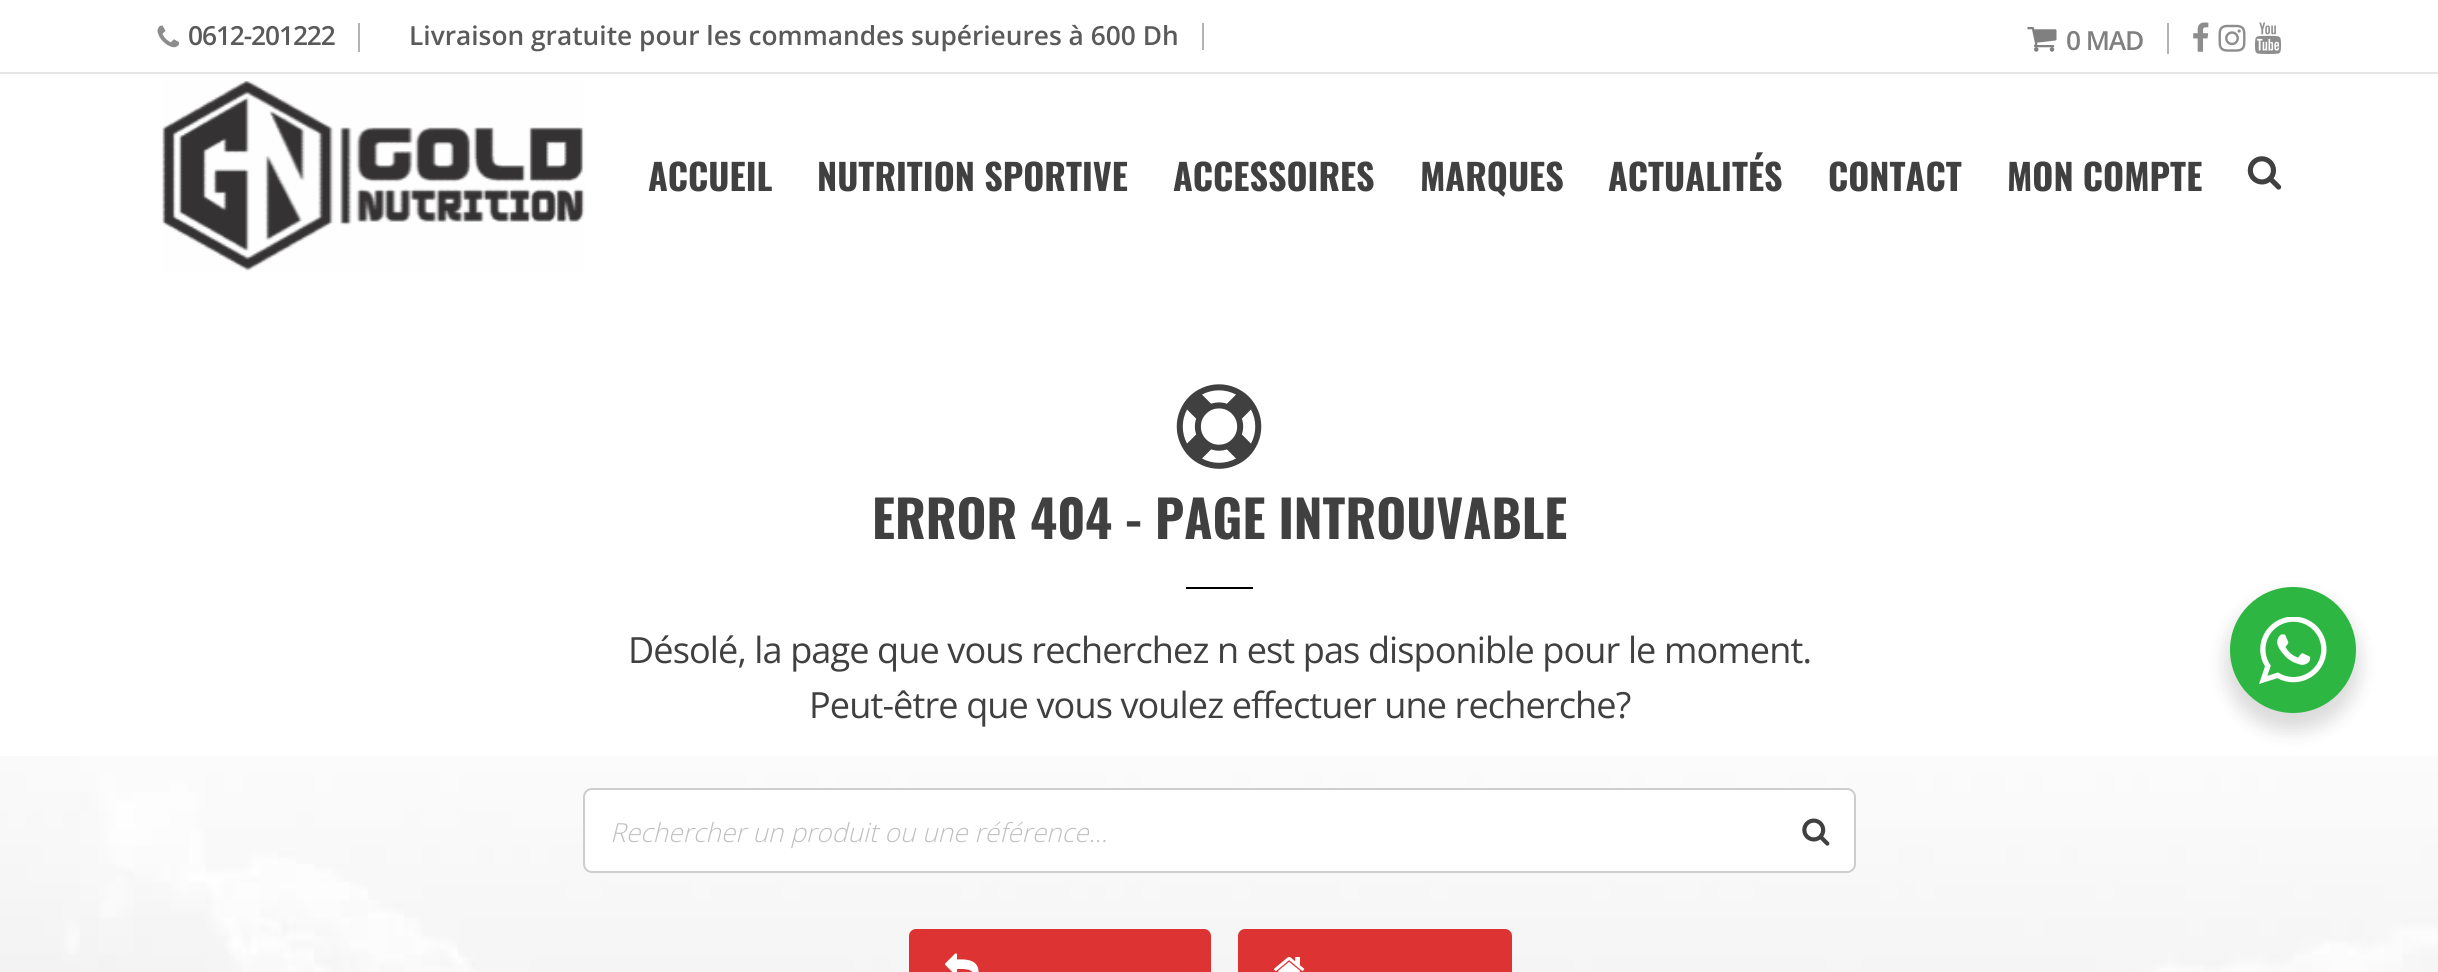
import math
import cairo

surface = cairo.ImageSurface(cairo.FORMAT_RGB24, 2438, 972)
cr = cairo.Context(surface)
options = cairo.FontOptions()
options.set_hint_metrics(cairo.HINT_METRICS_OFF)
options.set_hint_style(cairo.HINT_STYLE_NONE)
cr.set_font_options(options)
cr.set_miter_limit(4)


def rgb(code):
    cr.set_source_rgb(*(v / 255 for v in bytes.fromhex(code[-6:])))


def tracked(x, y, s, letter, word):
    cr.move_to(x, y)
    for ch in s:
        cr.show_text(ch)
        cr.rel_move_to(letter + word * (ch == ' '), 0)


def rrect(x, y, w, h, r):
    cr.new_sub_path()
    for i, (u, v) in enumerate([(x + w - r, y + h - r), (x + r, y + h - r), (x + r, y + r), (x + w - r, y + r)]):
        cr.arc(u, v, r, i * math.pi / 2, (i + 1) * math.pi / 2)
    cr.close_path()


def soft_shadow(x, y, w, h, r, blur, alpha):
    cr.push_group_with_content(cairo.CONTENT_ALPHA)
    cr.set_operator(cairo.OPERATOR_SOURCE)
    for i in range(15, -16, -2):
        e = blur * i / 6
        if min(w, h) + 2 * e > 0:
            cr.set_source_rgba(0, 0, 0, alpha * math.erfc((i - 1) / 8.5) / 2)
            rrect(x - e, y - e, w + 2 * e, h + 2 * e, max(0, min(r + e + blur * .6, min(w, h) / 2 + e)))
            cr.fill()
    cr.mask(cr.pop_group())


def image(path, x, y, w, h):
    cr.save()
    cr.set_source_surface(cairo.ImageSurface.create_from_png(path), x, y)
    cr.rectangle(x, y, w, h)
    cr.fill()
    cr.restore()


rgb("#ffffff")
cr.paint()
rgb("#e6e6e6")
cr.rectangle(0, 72, 2438, 2)
cr.fill()
rgb("#b3b3b3")
cr.rectangle(358, 23, 2, 29)
cr.fill()
image("img/1.png", 157, 25, 23, 23)
cr.rectangle(1202, 23, 2, 27)
cr.fill()
cr.rectangle(2167, 23, 2, 31)
cr.fill()
image("img/2.png", 2027, 27, 30, 25)
image("img/3.png", 2193, 22, 16, 30)
image("img/4.png", 2218, 24, 28, 28)
image("img/5.png", 2255, 22, 26, 32)
image("img/6.png", 162, 80, 423, 192)
image("img/7.png", 2247, 156, 35, 34)
image("img/8.png", 0, 756, 2438, 216)
image("img/9.png", 1176, 384, 86, 85)
rgb("#000000")
cr.rectangle(1186, 587, 67, 2)
cr.fill()
rgb("#ffffff")
rrect(584, 789, 1271, 83, 8)
cr.fill_preserve()
rgb("#cdcdcd")
cr.stroke()
image("img/10.png", 1802, 818, 28, 28)
rgb("#dd3333")
rrect(909, 929, 302, 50, 7)
cr.fill()
image("img/11.png", 945, 953, 34, 19)
rrect(1238, 929, 274, 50, 7)
cr.fill()
image("img/12.png", 1274, 956, 31, 16)
rgb("#000000")
soft_shadow(2225, 596, 135, 135, 67.5, 9, 0.14)
rgb("#2db742")
cr.arc(2293, 650, 63, 0, 2 * math.pi)
cr.fill()
image("img/13.png", 2259, 617, 68, 67)
cr.select_font_face("Open Sans SemiBold")
cr.set_font_size(26.3)
rgb("#5a5a5a")
tracked(188, 45, "0612-201222", -1.1, 0)
cr.move_to(409, 45)
cr.show_text("Livraison gratuite pour les commandes supérieures à 600 Dh")
rgb("#808080")
tracked(2066, 50, "0 MAD", -1.1, 0)
cr.select_font_face("Oswald", cairo.FONT_SLANT_NORMAL, cairo.FONT_WEIGHT_BOLD)
cr.set_font_size(36)
rgb("#404040")
for x, y, s in [
    (648, 191, "ACCUEIL"),
    (817, 191, "NUTRITION SPORTIVE"),
    (1173, 191, "ACCESSOIRES"),
    (1420, 191, "MARQUES"),
    (1608, 191, "ACTUALITÉS"),
    (1828, 191, "CONTACT"),
    (2007, 191, "MON COMPTE"),
]:
    cr.move_to(x, y)
    cr.show_text(s)
cr.set_font_size(51.25)
cr.move_to(872, 539)
cr.show_text("ERROR 404 - PAGE INTROUVABLE")
cr.select_font_face("Open Sans")
cr.set_font_size(36.1)
tracked(628, 663, "Désolé, la page que vous recherchez n est pas disponible pour le moment.", -0.9, 0)
tracked(809, 718, "Peut-être que vous voulez effectuer une recherche?", -0.9, 0)
cr.select_font_face("Open Sans Light", cairo.FONT_SLANT_ITALIC)
cr.set_font_size(26.3)
rgb("#c0c0c0")
cr.move_to(610, 842)
cr.show_text("Rechercher un produit ou une référence...")
surface.write_to_png("page.png")
